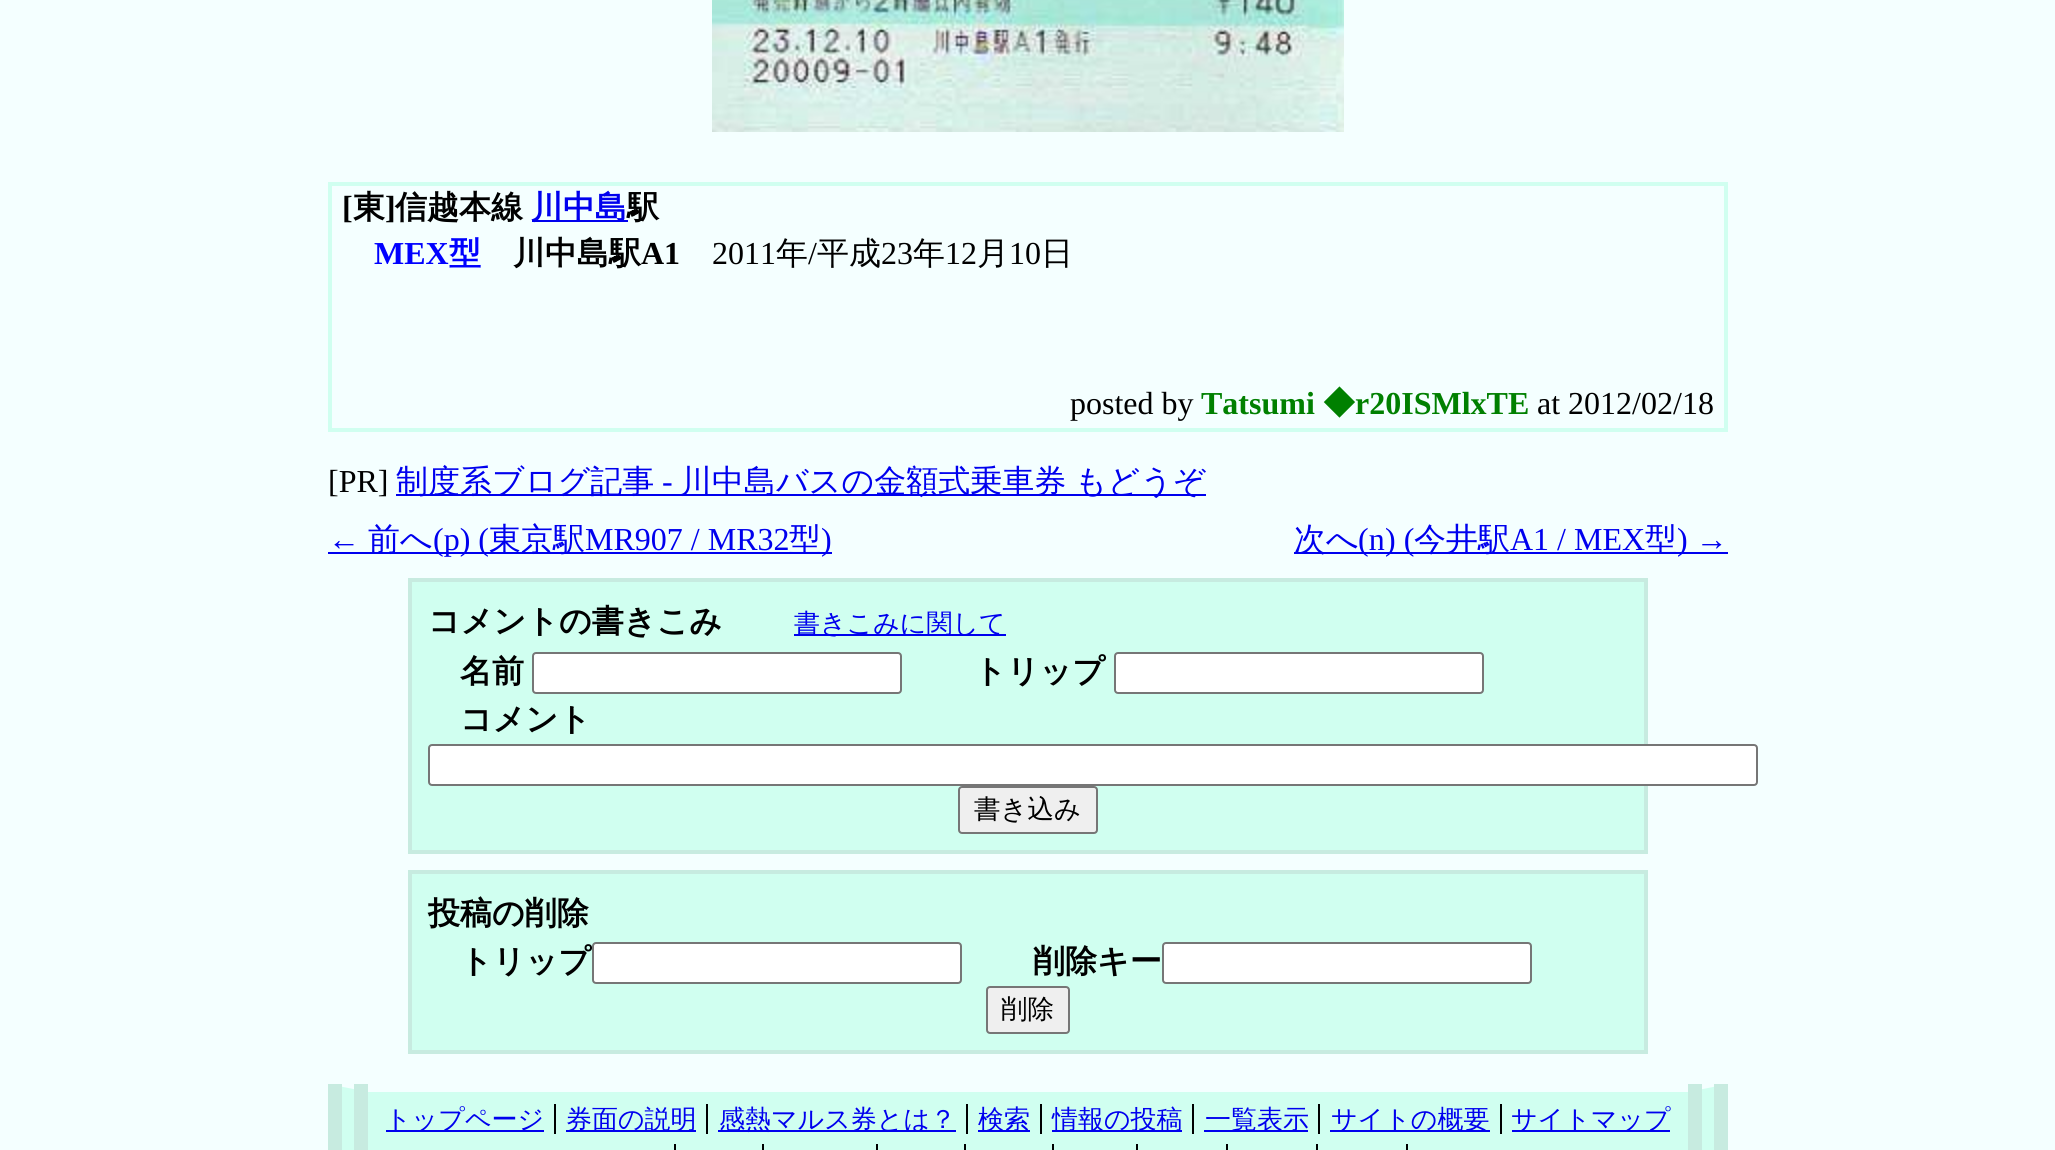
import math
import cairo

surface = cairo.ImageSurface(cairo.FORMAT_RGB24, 2055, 1150)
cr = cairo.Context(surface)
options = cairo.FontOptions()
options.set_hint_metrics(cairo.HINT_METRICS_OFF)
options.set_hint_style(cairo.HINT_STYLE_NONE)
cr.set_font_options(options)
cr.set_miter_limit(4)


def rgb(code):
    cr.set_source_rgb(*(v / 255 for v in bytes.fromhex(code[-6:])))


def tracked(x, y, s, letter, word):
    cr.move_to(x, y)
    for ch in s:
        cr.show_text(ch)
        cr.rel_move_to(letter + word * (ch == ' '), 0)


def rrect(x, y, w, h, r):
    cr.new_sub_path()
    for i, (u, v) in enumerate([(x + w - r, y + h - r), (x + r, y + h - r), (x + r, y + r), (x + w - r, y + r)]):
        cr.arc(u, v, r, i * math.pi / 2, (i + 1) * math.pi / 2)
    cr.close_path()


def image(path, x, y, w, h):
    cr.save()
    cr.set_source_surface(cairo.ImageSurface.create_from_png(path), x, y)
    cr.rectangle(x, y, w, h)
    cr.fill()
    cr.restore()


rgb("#f4ffff")
cr.paint()
image("img/1.png", 712, 0, 632, 132)
for x, y, w, h, color in [
    (328, 182, 1400, 4, "#d0fff0"),
    (1724, 182, 4, 250, "#d0fff0"),
    (328, 428, 1400, 4, "#d0fff0"),
    (328, 182, 4, 250, "#d0fff0"),
    (532, 220, 96, 2, "#0000ee"),
    (396, 494, 810, 2, "#0000ee"),
    (328, 552, 504, 2, "#0000ee"),
    (1294, 552, 90, 2, "#0000ee"),
    (1384, 552, 344, 2, "#0000ee"),
]:
    rgb(color)
    cr.rectangle(x, y, w, h)
    cr.fill()
rgb("#d0fff0")
cr.rectangle(410, 580, 1236, 272)
cr.fill_preserve()
rgb("#c7ebe0")
cr.set_line_width(4)
cr.stroke()
rgb("#0000ee")
cr.rectangle(794, 634, 212, 2)
cr.fill()
rgb("#ffffff")
rrect(533, 653, 368, 40, 3)
cr.fill_preserve()
rgb("#767676")
cr.set_line_width(2)
cr.stroke()
rgb("#ffffff")
rrect(1115, 653, 368, 40, 3)
cr.fill_preserve()
rgb("#767676")
cr.stroke()
rgb("#ffffff")
rrect(429, 745, 1328, 40, 3)
cr.fill_preserve()
rgb("#767676")
cr.stroke()
rgb("#efefef")
rrect(959, 787, 138, 46, 3)
cr.fill_preserve()
rgb("#767676")
cr.stroke()
rgb("#d0fff0")
cr.rectangle(410, 872, 1236, 180)
cr.fill_preserve()
rgb("#c7ebe0")
cr.set_line_width(4)
cr.stroke()
rgb("#ffffff")
rrect(593, 943, 368, 40, 3)
cr.fill_preserve()
rgb("#767676")
cr.set_line_width(2)
cr.stroke()
rgb("#ffffff")
rrect(1163, 943, 368, 40, 3)
cr.fill_preserve()
rgb("#767676")
cr.stroke()
rgb("#efefef")
rrect(987, 987, 82, 46, 3)
cr.fill_preserve()
rgb("#767676")
cr.stroke()
rgb("#d0fff0")
cr.rectangle(342, 1086, 1372, 64)
cr.fill()
rgb("#f4ffff")
cr.new_path()
cr.move_to(328, 1084)
cr.line_to(1728, 1084)
cr.line_to(1688, 1092)
cr.line_to(368, 1092)
cr.close_path()
cr.fill()
for x, y, w, h, color in [
    (1688, 1084, 14, 66, "#c7ebe0"),
    (1714, 1084, 14, 66, "#c7ebe0"),
    (328, 1084, 14, 66, "#c7ebe0"),
    (354, 1084, 14, 66, "#c7ebe0"),
    (554, 1104, 2, 30, "#000000"),
    (386, 1130, 158, 2, "#0000ee"),
    (706, 1104, 2, 30, "#000000"),
    (566, 1130, 130, 2, "#0000ee"),
    (966, 1104, 2, 30, "#000000"),
    (718, 1130, 238, 2, "#0000ee"),
    (1040, 1104, 2, 30, "#000000"),
    (978, 1130, 52, 2, "#0000ee"),
    (1192, 1104, 2, 30, "#000000"),
    (1052, 1130, 130, 2, "#0000ee"),
    (1318, 1104, 2, 30, "#000000"),
    (1204, 1130, 104, 2, "#0000ee"),
    (1500, 1104, 2, 30, "#000000"),
    (1330, 1130, 160, 2, "#0000ee"),
    (1512, 1130, 158, 2, "#0000ee"),
    (674, 1144, 2, 6, "#000000"),
    (762, 1144, 2, 6, "#000000"),
    (876, 1144, 2, 6, "#000000"),
    (964, 1144, 2, 6, "#000000"),
    (1052, 1144, 2, 6, "#000000"),
    (1136, 1144, 2, 6, "#000000"),
    (1226, 1144, 2, 6, "#000000"),
    (1316, 1144, 2, 6, "#000000"),
    (1406, 1144, 2, 6, "#000000"),
]:
    rgb(color)
    cr.rectangle(x, y, w, h)
    cr.fill()
cr.select_font_face("Liberation Serif", cairo.FONT_SLANT_NORMAL, cairo.FONT_WEIGHT_BOLD)
cr.set_font_size(32)
cr.move_to(342, 218)
cr.show_text("[")
cr.select_font_face("WenQuanYi Zen Hei", cairo.FONT_SLANT_NORMAL, cairo.FONT_WEIGHT_BOLD)
cr.move_to(353, 218)
cr.show_text("東")
cr.select_font_face("Liberation Serif", cairo.FONT_SLANT_NORMAL, cairo.FONT_WEIGHT_BOLD)
cr.move_to(385, 218)
cr.show_text("]")
cr.select_font_face("WenQuanYi Zen Hei", cairo.FONT_SLANT_NORMAL, cairo.FONT_WEIGHT_BOLD)
cr.move_to(395, 218)
cr.show_text("信越本線")
rgb("#0000ee")
cr.move_to(531, 218)
cr.show_text("川中島")
rgb("#000000")
cr.move_to(627, 218)
cr.show_text("駅")
cr.select_font_face("Liberation Serif", cairo.FONT_SLANT_NORMAL, cairo.FONT_WEIGHT_BOLD)
rgb("#0000ff")
cr.move_to(374, 264)
cr.show_text("MEX")
cr.select_font_face("WenQuanYi Zen Hei", cairo.FONT_SLANT_NORMAL, cairo.FONT_WEIGHT_BOLD)
cr.move_to(449, 264)
cr.show_text("型")
rgb("#000000")
cr.move_to(513, 264)
cr.show_text("川中島駅")
cr.select_font_face("Liberation Serif", cairo.FONT_SLANT_NORMAL, cairo.FONT_WEIGHT_BOLD)
cr.move_to(641, 264)
cr.show_text("A1")
cr.select_font_face("Liberation Serif")
cr.move_to(712, 264)
cr.show_text("2011")
cr.select_font_face("WenQuanYi Zen Hei Medium")
cr.move_to(776, 264)
cr.show_text("年")
cr.select_font_face("Liberation Serif")
cr.move_to(808, 264)
cr.show_text("/")
cr.select_font_face("WenQuanYi Zen Hei Medium")
cr.move_to(817, 264)
cr.show_text("平成")
cr.select_font_face("Liberation Serif")
cr.move_to(881, 264)
cr.show_text("23")
cr.select_font_face("WenQuanYi Zen Hei Medium")
cr.move_to(913, 264)
cr.show_text("年")
cr.select_font_face("Liberation Serif")
cr.move_to(945, 264)
cr.show_text("12")
cr.select_font_face("WenQuanYi Zen Hei Medium")
cr.move_to(977, 264)
cr.show_text("月")
cr.select_font_face("Liberation Serif")
cr.move_to(1009, 264)
cr.show_text("10")
cr.select_font_face("WenQuanYi Zen Hei Medium")
cr.move_to(1041, 264)
cr.show_text("日")
cr.select_font_face("Liberation Serif")
cr.move_to(1070, 414)
cr.show_text("posted by")
cr.select_font_face("Liberation Serif", cairo.FONT_SLANT_NORMAL, cairo.FONT_WEIGHT_BOLD)
rgb("#008000")
cr.move_to(1201, 414)
cr.show_text("Tatsumi")
cr.select_font_face("WenQuanYi Zen Hei", cairo.FONT_SLANT_NORMAL, cairo.FONT_WEIGHT_BOLD)
cr.move_to(1323, 414)
cr.show_text("◆")
cr.select_font_face("Liberation Serif", cairo.FONT_SLANT_NORMAL, cairo.FONT_WEIGHT_BOLD)
cr.move_to(1355, 414)
cr.show_text("r20ISMlxTE")
cr.select_font_face("Liberation Serif")
rgb("#000000")
cr.move_to(1537, 414)
cr.show_text("at 2012/02/18")
cr.move_to(328, 492)
cr.show_text("[PR]")
cr.select_font_face("WenQuanYi Zen Hei Medium")
rgb("#0000ee")
cr.move_to(396, 492)
cr.show_text("制度系ブログ記事")
cr.select_font_face("Liberation Serif")
cr.move_to(662, 492)
cr.show_text("-")
cr.select_font_face("WenQuanYi Zen Hei Medium")
tracked(680, 492, "川中島バスの金額式乗車券 もどうぞ", 0, -1)
cr.select_font_face("Liberation Serif")
cr.move_to(328, 550)
cr.show_text("←")
cr.select_font_face("WenQuanYi Zen Hei Medium")
cr.move_to(368, 550)
cr.show_text("前へ")
cr.select_font_face("Liberation Serif")
cr.move_to(433, 550)
cr.show_text("(p) (")
cr.select_font_face("WenQuanYi Zen Hei Medium")
cr.move_to(489, 550)
cr.show_text("東京駅")
cr.select_font_face("Liberation Serif")
cr.move_to(585, 550)
cr.show_text("MR907 / MR32")
cr.select_font_face("WenQuanYi Zen Hei Medium")
cr.move_to(789, 550)
cr.show_text("型")
cr.select_font_face("Liberation Serif")
cr.move_to(821, 550)
cr.show_text(")")
cr.select_font_face("WenQuanYi Zen Hei Medium")
cr.move_to(1294, 550)
cr.show_text("次へ")
cr.select_font_face("Liberation Serif")
cr.move_to(1358, 550)
cr.show_text("(n")
cr.move_to(1385, 550)
cr.show_text(") (")
cr.select_font_face("WenQuanYi Zen Hei Medium")
cr.move_to(1414, 550)
cr.show_text("今井駅")
cr.select_font_face("Liberation Serif")
cr.move_to(1510, 550)
cr.show_text("A1 / MEX")
cr.select_font_face("WenQuanYi Zen Hei Medium")
cr.move_to(1645, 550)
cr.show_text("型")
cr.select_font_face("Liberation Serif")
cr.move_to(1677, 550)
cr.show_text(") →")
cr.select_font_face("WenQuanYi Zen Hei", cairo.FONT_SLANT_NORMAL, cairo.FONT_WEIGHT_BOLD)
rgb("#000000")
cr.move_to(428, 632)
cr.show_text("コメントの書きこみ")
cr.select_font_face("WenQuanYi Zen Hei Medium")
cr.set_font_size(26)
rgb("#0000ee")
cr.move_to(794, 632)
cr.show_text("書きこみに関して")
cr.select_font_face("WenQuanYi Zen Hei", cairo.FONT_SLANT_NORMAL, cairo.FONT_WEIGHT_BOLD)
cr.set_font_size(32)
rgb("#000000")
for x, y, s in [
    (460, 682, "名前"),
    (974, 682, "トリップ"),
    (460, 730, "コメント"),
]:
    cr.move_to(x, y)
    cr.show_text(s)
cr.select_font_face("WenQuanYi Zen Hei Medium")
cr.set_font_size(26.5)
cr.move_to(974, 818)
cr.show_text("書き込み")
cr.select_font_face("WenQuanYi Zen Hei", cairo.FONT_SLANT_NORMAL, cairo.FONT_WEIGHT_BOLD)
cr.set_font_size(32)
for x, y, s in [
    (428, 924, "投稿の削除"),
    (460, 972, "トリップ"),
    (1033, 972, "削除キー"),
]:
    cr.move_to(x, y)
    cr.show_text(s)
cr.select_font_face("WenQuanYi Zen Hei Medium")
cr.set_font_size(26.5)
cr.move_to(1001, 1018)
cr.show_text("削除")
cr.set_font_size(26)
rgb("#0000ee")
for x, y, s in [
    (385, 1128, "トップページ"),
    (566, 1128, "券面の説明"),
    (719, 1128, "感熱マルス券とは？"),
    (978, 1128, "検索"),
    (1052, 1128, "情報の投稿"),
    (1205, 1128, "一覧表示"),
    (1331, 1128, "サイトの概要"),
    (1511, 1128, "サイトマップ"),
]:
    cr.move_to(x, y)
    cr.show_text(s)
surface.write_to_png("page.png")
